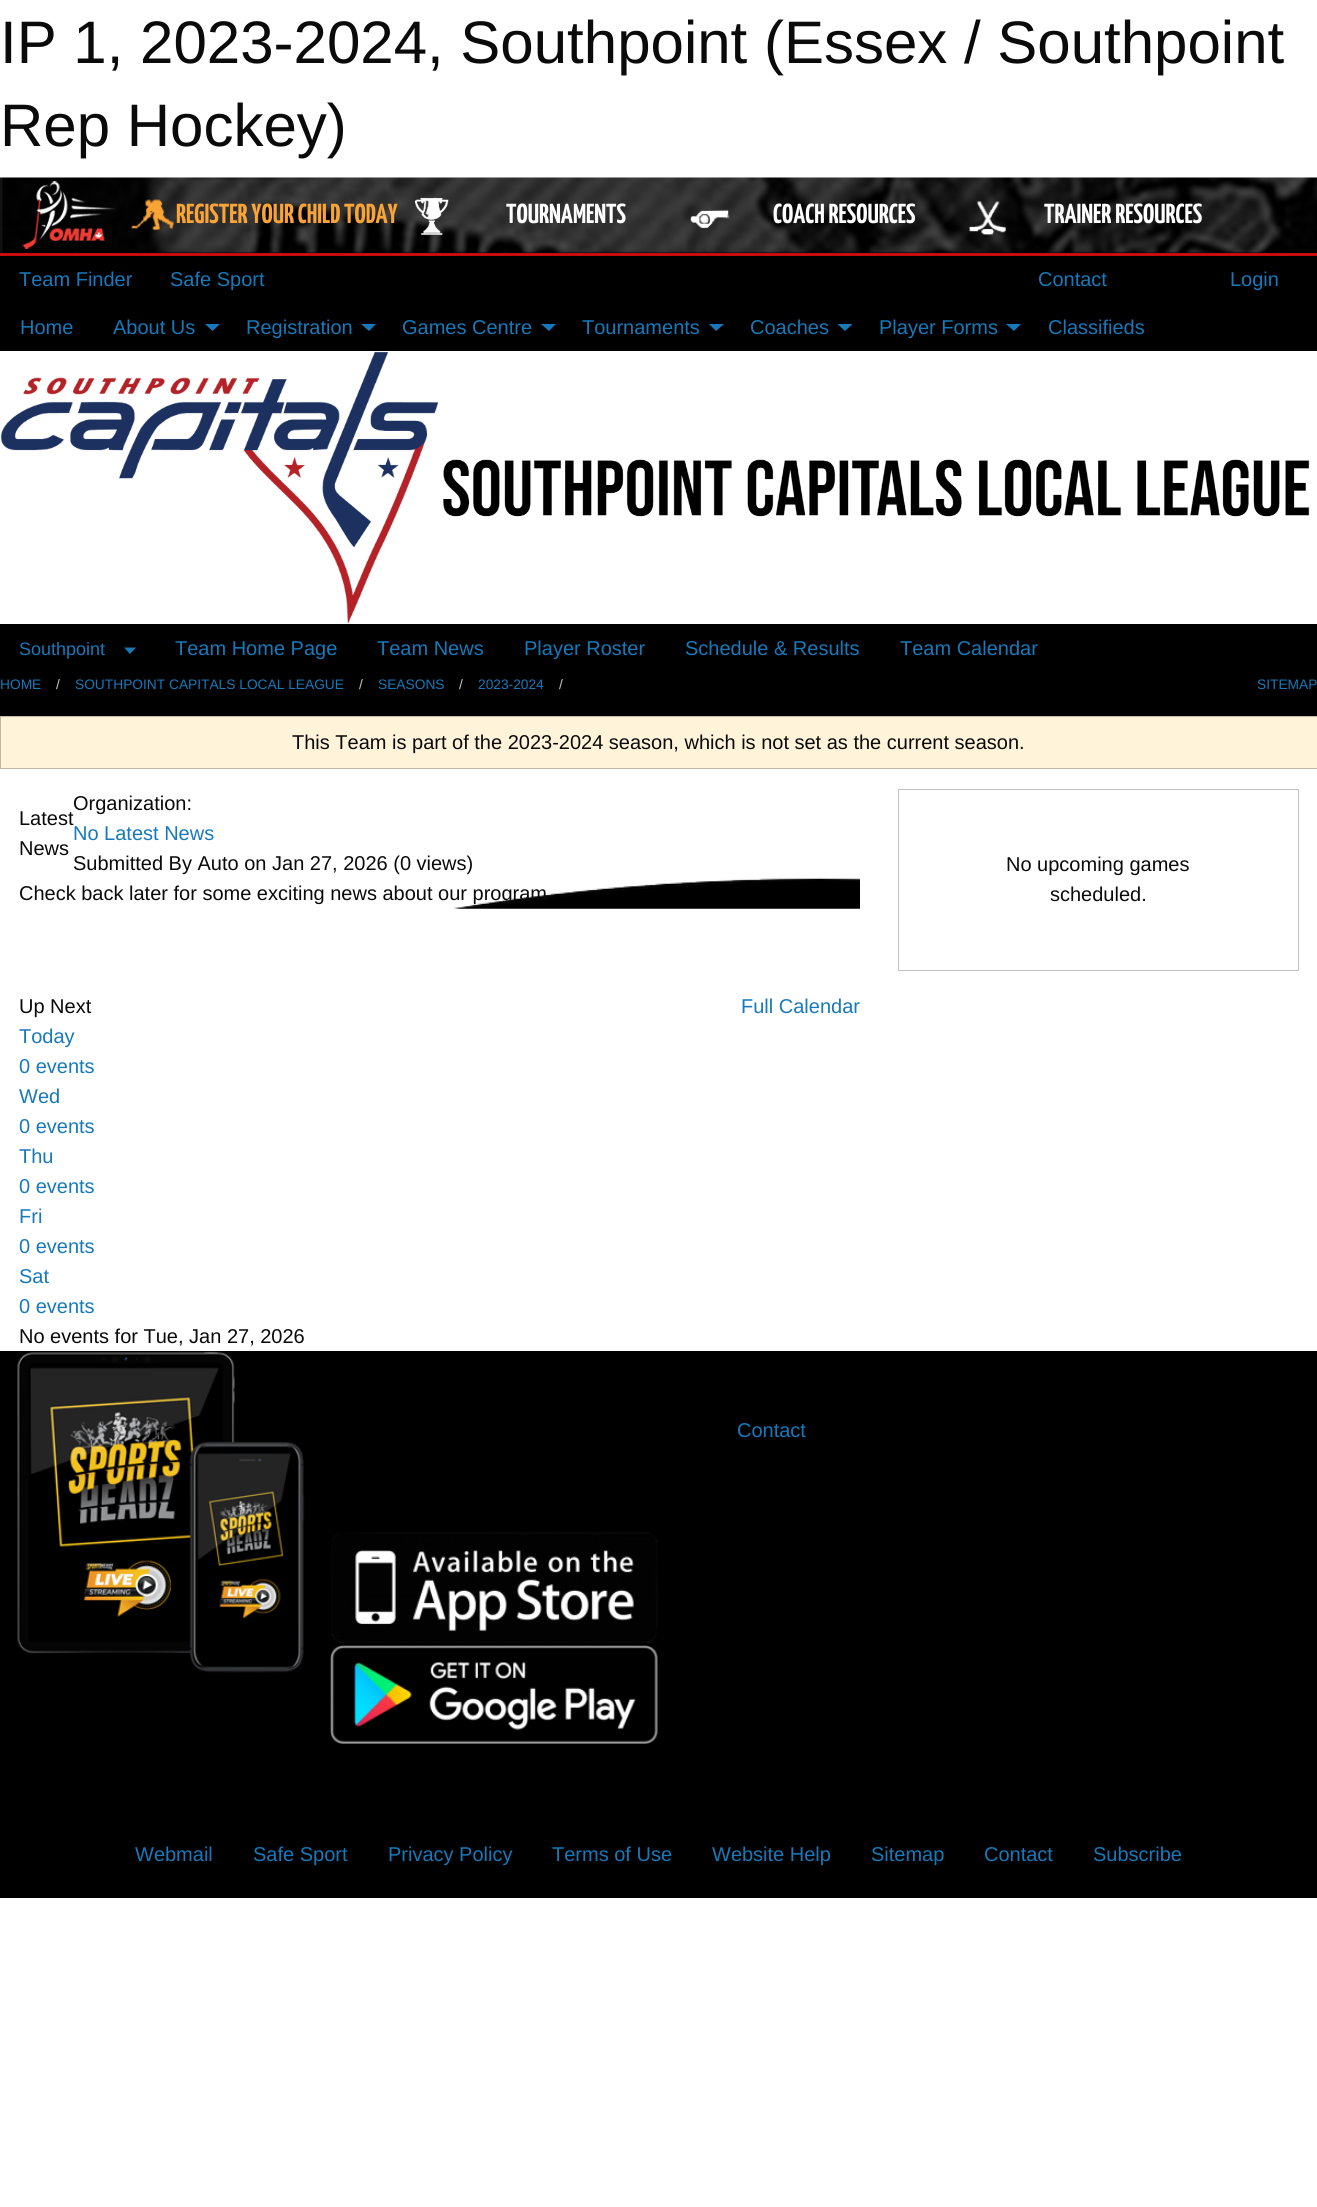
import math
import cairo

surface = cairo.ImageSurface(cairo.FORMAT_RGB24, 1317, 2207)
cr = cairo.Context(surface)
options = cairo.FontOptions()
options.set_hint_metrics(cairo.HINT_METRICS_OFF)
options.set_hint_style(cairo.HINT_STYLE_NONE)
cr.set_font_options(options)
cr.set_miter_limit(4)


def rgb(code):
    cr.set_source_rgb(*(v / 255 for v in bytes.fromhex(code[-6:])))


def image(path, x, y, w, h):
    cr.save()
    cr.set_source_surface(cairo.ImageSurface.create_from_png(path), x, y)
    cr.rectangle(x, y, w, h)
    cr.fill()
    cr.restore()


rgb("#ffffff")
cr.paint()
rgb("#000000")
cr.rectangle(0, 252, 1317, 1)
cr.fill()
rgb("#c60c0c")
cr.rectangle(0, 253, 1317, 3)
cr.fill()
image("img/1.png", 0, 177, 1317, 76)
image("img/2.png", 22, 181, 94, 68)
image("img/3.png", 131, 199, 43, 32)
image("img/4.png", 414, 197, 35, 39)
image("img/5.png", 690, 209, 40, 19)
image("img/6.png", 969, 201, 37, 35)
rgb("#000000")
cr.rectangle(0, 256, 1317, 1642)
cr.fill()
rgb("#1779ba")
cr.new_path()
cr.move_to(205, 324)
cr.line_to(220, 324)
cr.line_to(212.5, 331)
cr.close_path()
cr.fill()
cr.new_path()
cr.move_to(361, 324)
cr.line_to(376, 324)
cr.line_to(369, 331)
cr.close_path()
cr.fill()
cr.new_path()
cr.move_to(541, 324)
cr.line_to(556, 324)
cr.line_to(549, 331)
cr.close_path()
cr.fill()
cr.new_path()
cr.move_to(709, 324)
cr.line_to(724, 324)
cr.line_to(716, 331)
cr.close_path()
cr.fill()
cr.new_path()
cr.move_to(837.5, 324)
cr.line_to(852.5, 324)
cr.line_to(845, 331)
cr.close_path()
cr.fill()
cr.new_path()
cr.move_to(1006, 324)
cr.line_to(1021, 324)
cr.line_to(1014, 331)
cr.close_path()
cr.fill()
rgb("#ffffff")
cr.rectangle(0, 351, 1317, 273)
cr.fill()
image("img/7.png", 0, 351, 439, 273)
image("img/8.png", 443, 459, 867, 58)
rgb("#1779ba")
cr.new_path()
cr.move_to(124, 647.5)
cr.line_to(136, 647.5)
cr.line_to(130, 654)
cr.close_path()
cr.fill()
rgb("#ffffff")
cr.rectangle(0, 769, 1317, 582)
cr.fill()
rgb("#fff3d9")
cr.rectangle(0.5, 716.5, 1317, 52)
cr.fill_preserve()
rgb("#c2b9a5")
cr.set_line_width(1)
cr.stroke()
image("img/9.png", 454, 878, 406, 31)
cr.rectangle(898.5, 789.5, 400, 181)
rgb("#c2c2c2")
cr.stroke()
image("img/10.png", 17, 1351, 288, 322)
image("img/11.png", 331, 1532, 327, 111)
image("img/12.png", 330, 1645, 328, 99)
cr.select_font_face("Liberation Sans")
cr.set_font_size(60)
rgb("#0a0a0a")
cr.move_to(0, 63)
cr.show_text("IP 1, 2023-2024, Southpoint (Essex / Southpoint")
cr.move_to(0, 146)
cr.show_text("Rep Hockey)")
cr.select_font_face("Yanone Kaffeesatz ExtraLight")
cr.set_font_size(27.5)
rgb("#f9a435")
cr.move_to(176, 223)
cr.show_text("REGISTER YOUR CHILD TODAY")
rgb("#ffffff")
for x, y, s in [
    (506, 223, "TOURNAMENTS"),
    (773, 223, "COACH RESOURCES"),
    (1044, 223, "TRAINER RESOURCES"),
]:
    cr.move_to(x, y)
    cr.show_text(s)
cr.select_font_face("Liberation Sans")
cr.set_font_size(20)
rgb("#1779ba")
for x, y, s in [
    (19, 286, "Team Finder"),
    (170, 286, "Safe Sport"),
    (1038, 286, "Contact"),
    (1230, 286, "Login"),
    (20, 334, "Home"),
    (113, 334, "About Us"),
    (246, 334, "Registration"),
    (402, 334, "Games Centre"),
    (582, 334, "Tournaments"),
    (750, 334, "Coaches"),
    (879, 334, "Player Forms"),
    (1048, 334, "Classifieds"),
]:
    cr.move_to(x, y)
    cr.show_text(s)
cr.set_font_size(18)
cr.move_to(19, 655)
cr.show_text("Southpoint")
cr.set_font_size(20)
for x, y, s in [
    (175, 655, "Team Home Page"),
    (377, 655, "Team News"),
    (524, 655, "Player Roster"),
    (685, 655, "Schedule & Results"),
    (900, 655, "Team Calendar"),
]:
    cr.move_to(x, y)
    cr.show_text(s)
cr.set_font_size(13.75)
cr.move_to(0, 689)
cr.show_text("HOME")
rgb("#cacaca")
cr.move_to(56, 689)
cr.show_text("/")
rgb("#1779ba")
cr.move_to(75, 689)
cr.show_text("SOUTHPOINT CAPITALS LOCAL LEAGUE")
rgb("#cacaca")
cr.move_to(359, 689)
cr.show_text("/")
rgb("#1779ba")
cr.move_to(378, 689)
cr.show_text("SEASONS")
rgb("#cacaca")
cr.move_to(459, 689)
cr.show_text("/")
rgb("#1779ba")
cr.move_to(478, 689)
cr.show_text("2023-2024")
rgb("#cacaca")
cr.move_to(559, 689)
cr.show_text("/")
rgb("#1779ba")
cr.move_to(1257, 689)
cr.show_text("SITEMAP")
cr.set_font_size(20)
rgb("#0a0a0a")
for x, y, s in [
    (292, 749, "This Team is part of the 2023-2024 season, which is not set as the current season."),
    (19, 825, "Latest"),
    (19, 855, "News"),
    (73, 810, "Organization:"),
]:
    cr.move_to(x, y)
    cr.show_text(s)
rgb("#1779ba")
cr.move_to(73, 840)
cr.show_text("No Latest News")
rgb("#0a0a0a")
for x, y, s in [
    (73, 870, "Submitted By Auto on Jan 27, 2026 (0 views)"),
    (19, 900, "Check back later for some exciting news about our program"),
    (1006, 871, "No upcoming games"),
    (1050, 901, "scheduled."),
    (19, 1013, "Up Next"),
]:
    cr.move_to(x, y)
    cr.show_text(s)
rgb("#1779ba")
for x, y, s in [
    (741, 1013, "Full Calendar"),
    (19, 1043, "Today"),
    (19, 1073, "0 events"),
    (19, 1103, "Wed"),
    (19, 1133, "0 events"),
    (19, 1163, "Thu"),
    (19, 1193, "0 events"),
    (19, 1223, "Fri"),
    (19, 1253, "0 events"),
    (19, 1283, "Sat"),
    (19, 1313, "0 events"),
]:
    cr.move_to(x, y)
    cr.show_text(s)
rgb("#0a0a0a")
cr.move_to(19, 1343)
cr.show_text("No events for Tue, Jan 27, 2026")
rgb("#1779ba")
for x, y, s in [
    (737, 1437, "Contact"),
    (135, 1861, "Webmail"),
    (253, 1861, "Safe Sport"),
    (388, 1861, "Privacy Policy"),
    (552, 1861, "Terms of Use"),
    (712, 1861, "Website Help"),
    (871, 1861, "Sitemap"),
    (984, 1861, "Contact"),
    (1093, 1861, "Subscribe"),
]:
    cr.move_to(x, y)
    cr.show_text(s)
surface.write_to_png("page.png")
